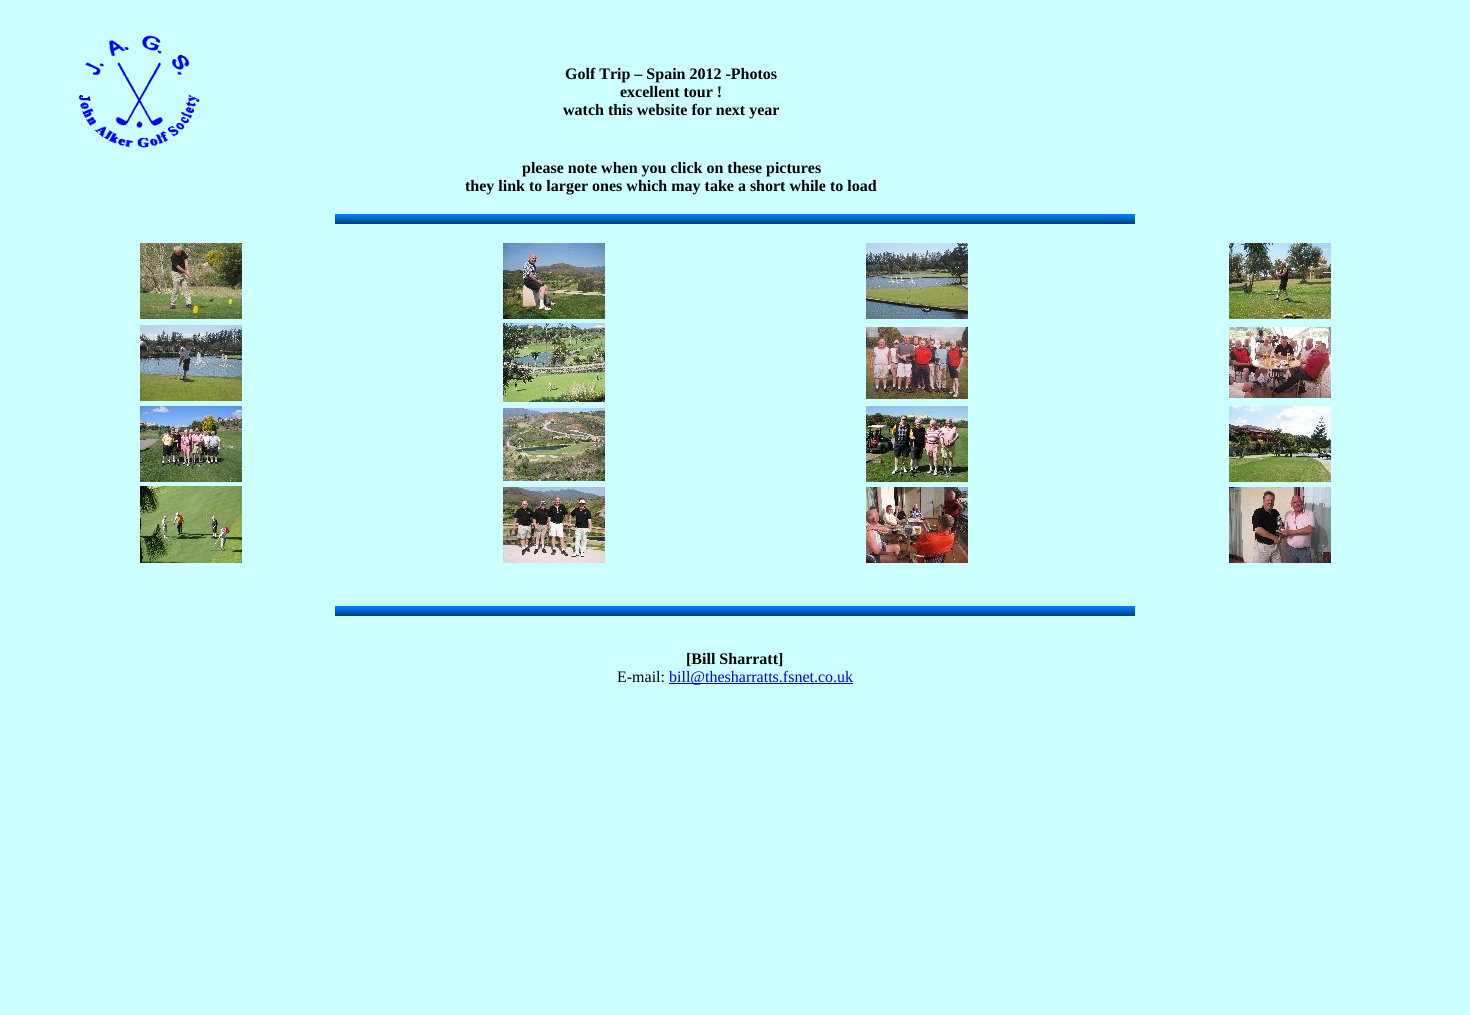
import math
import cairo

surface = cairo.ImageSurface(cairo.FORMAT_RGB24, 1470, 1015)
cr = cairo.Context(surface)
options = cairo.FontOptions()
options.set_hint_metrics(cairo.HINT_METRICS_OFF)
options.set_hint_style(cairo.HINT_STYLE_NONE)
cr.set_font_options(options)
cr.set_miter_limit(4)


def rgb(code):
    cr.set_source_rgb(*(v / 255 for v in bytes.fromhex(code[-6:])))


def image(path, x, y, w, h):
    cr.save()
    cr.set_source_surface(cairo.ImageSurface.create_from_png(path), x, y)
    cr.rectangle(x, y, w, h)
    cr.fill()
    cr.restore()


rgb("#ccffff")
cr.paint()
image("img/1.png", 78, 35, 122, 113)
image("img/2.png", 335, 214, 800, 10)
image("img/3.png", 140, 243, 102, 76)
image("img/4.png", 503, 243, 102, 76)
image("img/5.png", 866, 243, 102, 76)
image("img/6.png", 1229, 243, 102, 76)
image("img/7.png", 140, 325, 102, 76)
image("img/8.png", 503, 323, 102, 79)
image("img/9.png", 866, 327, 102, 72)
image("img/10.png", 1229, 327, 102, 71)
image("img/11.png", 140, 406, 102, 76)
image("img/12.png", 503, 408, 102, 73)
image("img/13.png", 866, 406, 102, 76)
image("img/14.png", 1229, 406, 102, 76)
image("img/15.png", 140, 486, 102, 77)
image("img/16.png", 503, 487, 102, 76)
image("img/17.png", 866, 487, 102, 76)
image("img/18.png", 1229, 487, 102, 76)
image("img/2.png", 335, 606, 800, 10)
rgb("#0000ee")
cr.rectangle(669, 683, 184, 1)
cr.fill()
cr.select_font_face("Liberation Serif", cairo.FONT_SLANT_NORMAL, cairo.FONT_WEIGHT_BOLD)
cr.set_font_size(16)
rgb("#000000")
for x, y, s in [
    (565, 79, "Golf Trip – Spain 2012 -Photos"),
    (620, 97, "excellent tour !"),
    (563, 115, "watch this website for next year"),
    (522, 173, "please note when you click on these pictures"),
    (465, 191, "they link to larger ones which may take a short while to load"),
    (686, 664, "[Bill Sharratt]"),
]:
    cr.move_to(x, y)
    cr.show_text(s)
cr.select_font_face("Liberation Serif")
cr.move_to(617, 682)
cr.show_text("E-mail:")
rgb("#0000ee")
cr.move_to(669, 682)
cr.show_text("bill@thesharratts.fsnet.co.uk")
surface.write_to_png("page.png")
